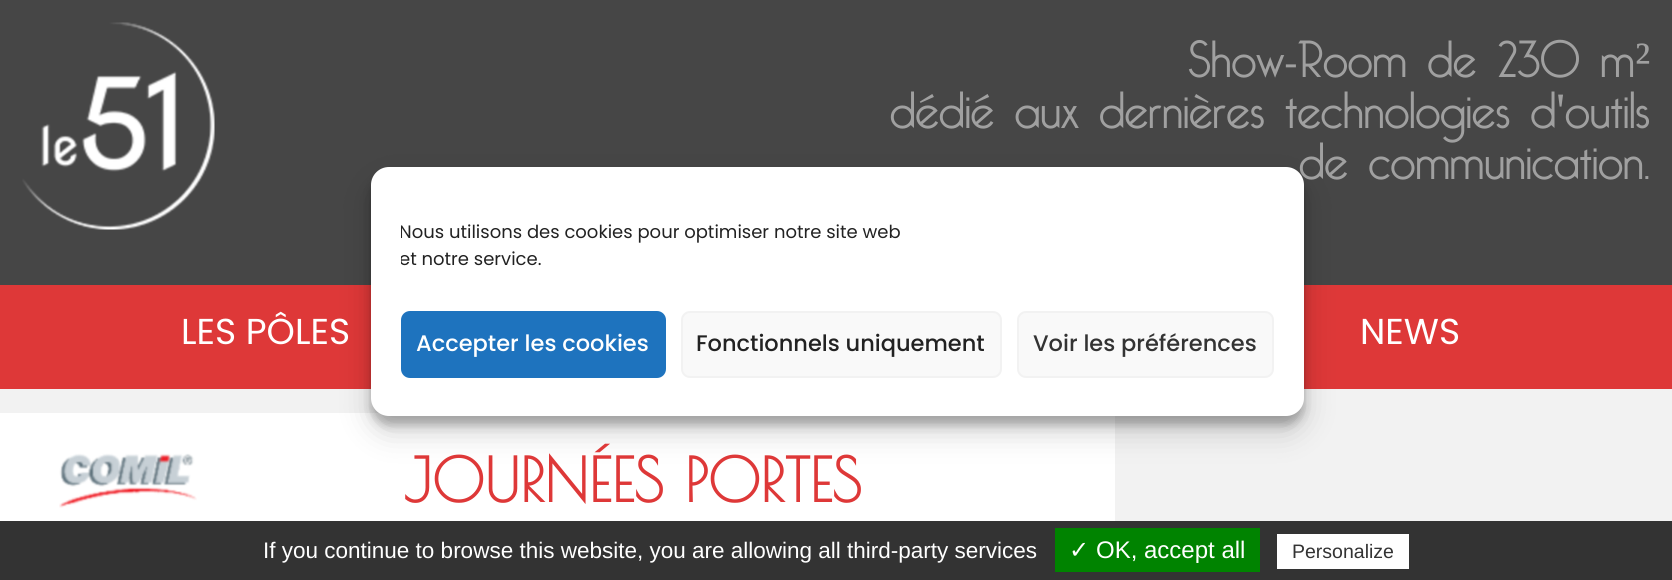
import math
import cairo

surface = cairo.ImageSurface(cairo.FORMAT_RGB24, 1672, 580)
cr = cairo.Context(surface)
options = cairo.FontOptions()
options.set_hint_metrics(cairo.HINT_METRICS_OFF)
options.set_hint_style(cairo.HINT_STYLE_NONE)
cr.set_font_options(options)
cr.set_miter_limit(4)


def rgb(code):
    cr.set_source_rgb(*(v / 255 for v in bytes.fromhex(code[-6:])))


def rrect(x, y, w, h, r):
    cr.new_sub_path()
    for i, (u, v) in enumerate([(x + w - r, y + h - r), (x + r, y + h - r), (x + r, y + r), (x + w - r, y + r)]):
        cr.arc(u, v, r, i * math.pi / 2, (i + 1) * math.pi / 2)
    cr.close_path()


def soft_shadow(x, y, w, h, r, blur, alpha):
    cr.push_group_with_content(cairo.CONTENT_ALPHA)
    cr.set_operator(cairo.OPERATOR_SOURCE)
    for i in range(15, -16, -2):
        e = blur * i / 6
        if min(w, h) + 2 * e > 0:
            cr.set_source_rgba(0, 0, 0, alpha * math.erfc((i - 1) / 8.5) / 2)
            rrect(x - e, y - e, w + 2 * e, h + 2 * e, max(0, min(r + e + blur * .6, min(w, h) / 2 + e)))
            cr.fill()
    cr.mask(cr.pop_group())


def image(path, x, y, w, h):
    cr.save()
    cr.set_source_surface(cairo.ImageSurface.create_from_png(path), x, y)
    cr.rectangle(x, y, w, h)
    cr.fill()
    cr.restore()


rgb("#464646")
cr.paint()
image("img/1.png", 22, 22, 193, 208)
for x, y, w, h, color in [
    (0, 285, 1672, 104, "#de3838"),
    (0, 389, 1672, 132, "#f2f2f2"),
    (0, 413, 1115, 108, "#ffffff"),
]:
    rgb(color)
    cr.rectangle(x, y, w, h)
    cr.fill()
image("img/2.png", 59, 453, 138, 55)
rgb("#000000")
soft_shadow(371, 176, 933, 249, 18, 4.5, 0.23)
soft_shadow(371, 182, 933, 249, 18, 15, 0.19)
for x, y, w, h, color in [
    (0, 521, 1672, 59, "#333333"),
    (1055, 528, 205, 44, "#008300"),
    (1277, 534, 132, 35, "#ffffff"),
]:
    rgb(color)
    cr.rectangle(x, y, w, h)
    cr.fill()
cr.select_font_face("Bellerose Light")
cr.set_font_size(51)
rgb("#a0a0a0")
cr.move_to(1188, 77)
cr.show_text("Show-Room de 230 m")
cr.select_font_face("Liberation Serif")
cr.move_to(1635, 77)
cr.show_text("²")
cr.select_font_face("Bellerose Light")
cr.move_to(890, 128)
cr.show_text("dédié aux dernières technologies d")
cr.select_font_face("Liberation Serif")
cr.move_to(1556, 128)
cr.show_text("'")
cr.select_font_face("Bellerose Light")
cr.move_to(1565, 128)
cr.show_text("outils")
cr.move_to(1299, 179)
cr.show_text("de communication.")
cr.select_font_face("Poppins")
cr.set_font_size(36)
rgb("#ffffff")
cr.move_to(181, 344)
cr.show_text("LES PÔLES")
cr.move_to(1360, 344)
cr.show_text("NEWS")
cr.select_font_face("Poiret One", cairo.FONT_SLANT_NORMAL, cairo.FONT_WEIGHT_BOLD)
cr.set_font_size(60)
rgb("#de3838")
cr.move_to(404, 502)
cr.show_text("JOURNÉES PORTES")
rgb("#ffffff")
rrect(371, 167, 933, 249, 18)
cr.fill()
cr.save()
cr.rectangle(401, 219, 873, 62)
cr.clip()
cr.select_font_face("Poppins")
cr.set_font_size(18)
rgb("#222222")
cr.move_to(399, 238)
cr.show_text("Nous utilisons des cookies pour optimiser notre site web")
cr.move_to(399, 265)
cr.show_text("et notre service.")
cr.restore()
rgb("#1e73be")
rrect(402, 312, 263, 65, 8)
cr.fill_preserve()
cr.stroke()
cr.select_font_face("Poppins Medium")
cr.set_font_size(22.5)
rgb("#ffffff")
cr.move_to(416, 351)
cr.show_text("Accepter les cookies")
rgb("#f9f9f9")
rrect(682, 312, 319, 65, 8)
cr.fill_preserve()
rgb("#f2f2f2")
cr.stroke()
rgb("#222222")
cr.move_to(696, 351)
cr.show_text("Fonctionnels uniquement")
rgb("#f9f9f9")
rrect(1018, 312, 255, 65, 8)
cr.fill_preserve()
rgb("#f2f2f2")
cr.stroke()
rgb("#333333")
cr.move_to(1033, 351)
cr.show_text("Voir les préférences")
cr.select_font_face("Liberation Sans")
rgb("#ffffff")
cr.move_to(263, 558)
cr.show_text("If you continue to browse this website, you are allowing all third-party services")
cr.select_font_face("DejaVu Sans")
cr.set_font_size(24)
cr.move_to(1069, 558)
cr.show_text("✓")
cr.select_font_face("Liberation Sans")
cr.move_to(1096, 558)
cr.show_text("OK, accept all")
cr.set_font_size(19.5)
rgb("#333333")
cr.move_to(1292, 558)
cr.show_text("Personalize")
surface.write_to_png("page.png")
